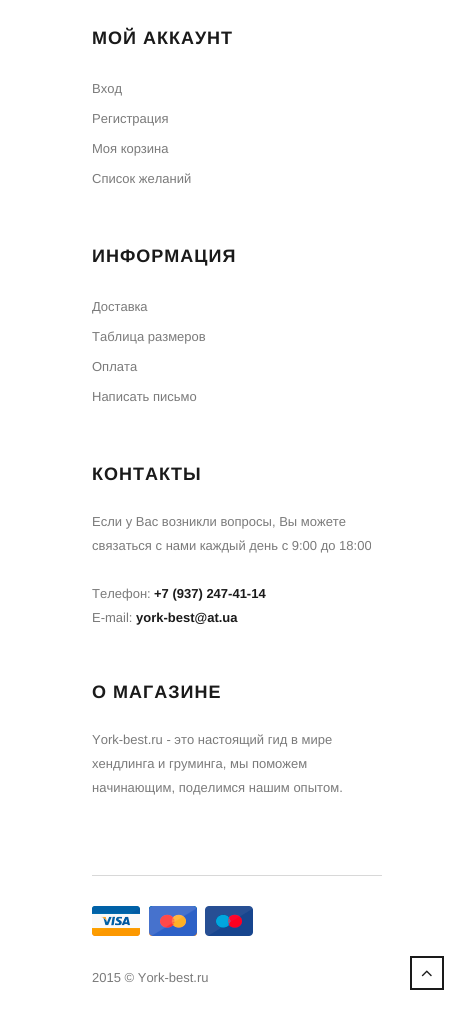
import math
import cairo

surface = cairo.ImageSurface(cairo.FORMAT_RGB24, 474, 1020)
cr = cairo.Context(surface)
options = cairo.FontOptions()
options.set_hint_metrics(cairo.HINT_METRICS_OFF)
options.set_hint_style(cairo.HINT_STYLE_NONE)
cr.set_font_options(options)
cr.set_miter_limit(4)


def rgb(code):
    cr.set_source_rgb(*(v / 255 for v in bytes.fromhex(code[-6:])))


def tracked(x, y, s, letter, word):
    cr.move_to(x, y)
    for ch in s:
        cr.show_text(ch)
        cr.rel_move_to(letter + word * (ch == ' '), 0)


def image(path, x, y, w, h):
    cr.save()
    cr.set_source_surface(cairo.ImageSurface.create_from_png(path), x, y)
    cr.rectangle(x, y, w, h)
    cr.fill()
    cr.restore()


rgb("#ffffff")
cr.paint()
rgb("#d8d8d8")
cr.rectangle(92, 875, 290, 1)
cr.fill()
image("img/1.png", 92, 906, 48, 30)
image("img/2.png", 149, 906, 48, 30)
image("img/3.png", 205, 906, 48, 30)
cr.rectangle(411, 957, 32, 32)
rgb("#1a1a1a")
cr.stroke()
image("img/4.png", 421, 970, 11, 7)
cr.select_font_face("Liberation Sans", cairo.FONT_SLANT_NORMAL, cairo.FONT_WEIGHT_BOLD)
cr.set_font_size(18)
tracked(92, 44, "МОЙ АККАУНТ", 1, 0)
cr.select_font_face("Liberation Sans")
cr.set_font_size(13)
rgb("#7a7a7a")
for x, y, s in [
    (92, 93, "Вход"),
    (92, 123, "Регистрация"),
    (92, 153, "Моя корзина"),
    (92, 183, "Cписок желаний"),
]:
    cr.move_to(x, y)
    cr.show_text(s)
cr.select_font_face("Liberation Sans", cairo.FONT_SLANT_NORMAL, cairo.FONT_WEIGHT_BOLD)
cr.set_font_size(18)
rgb("#1a1a1a")
tracked(92, 262, "ИНФОРМАЦИЯ", 1, 0)
cr.select_font_face("Liberation Sans")
cr.set_font_size(13)
rgb("#7a7a7a")
for x, y, s in [
    (92, 311, "Доставка"),
    (92, 341, "Таблица размеров"),
    (92, 371, "Оплата"),
    (92, 401, "Написать письмо"),
]:
    cr.move_to(x, y)
    cr.show_text(s)
cr.select_font_face("Liberation Sans", cairo.FONT_SLANT_NORMAL, cairo.FONT_WEIGHT_BOLD)
cr.set_font_size(18)
rgb("#1a1a1a")
tracked(92, 480, "КОНТАКТЫ", 1, 0)
cr.select_font_face("Liberation Sans")
cr.set_font_size(13)
rgb("#7a7a7a")
for x, y, s in [
    (92, 526, "Если у Вас возникли вопросы, Вы можете"),
    (92, 550, "связаться с нами каждый день с 9:00 до 18:00"),
    (92, 598, "Телефон:"),
]:
    cr.move_to(x, y)
    cr.show_text(s)
cr.select_font_face("Liberation Sans", cairo.FONT_SLANT_NORMAL, cairo.FONT_WEIGHT_BOLD)
rgb("#1a1a1a")
cr.move_to(154, 598)
cr.show_text("+7 (937) 247-41-14")
cr.select_font_face("Liberation Sans")
rgb("#7a7a7a")
cr.move_to(92, 622)
cr.show_text("E-mail:")
cr.select_font_face("Liberation Sans", cairo.FONT_SLANT_NORMAL, cairo.FONT_WEIGHT_BOLD)
rgb("#1a1a1a")
cr.move_to(136, 622)
cr.show_text("york-best@at.ua")
cr.set_font_size(18)
tracked(92, 698, "О МАГАЗИНЕ", 1, 0)
cr.select_font_face("Liberation Sans")
cr.set_font_size(13)
rgb("#7a7a7a")
for x, y, s in [
    (92, 744, "York-best.ru - это настоящий гид в мире"),
    (92, 768, "хендлинга и груминга, мы поможем"),
    (92, 792, "начинающим, поделимся нашим опытом."),
    (92, 982, "2015 © York-best.ru"),
]:
    cr.move_to(x, y)
    cr.show_text(s)
surface.write_to_png("page.png")
